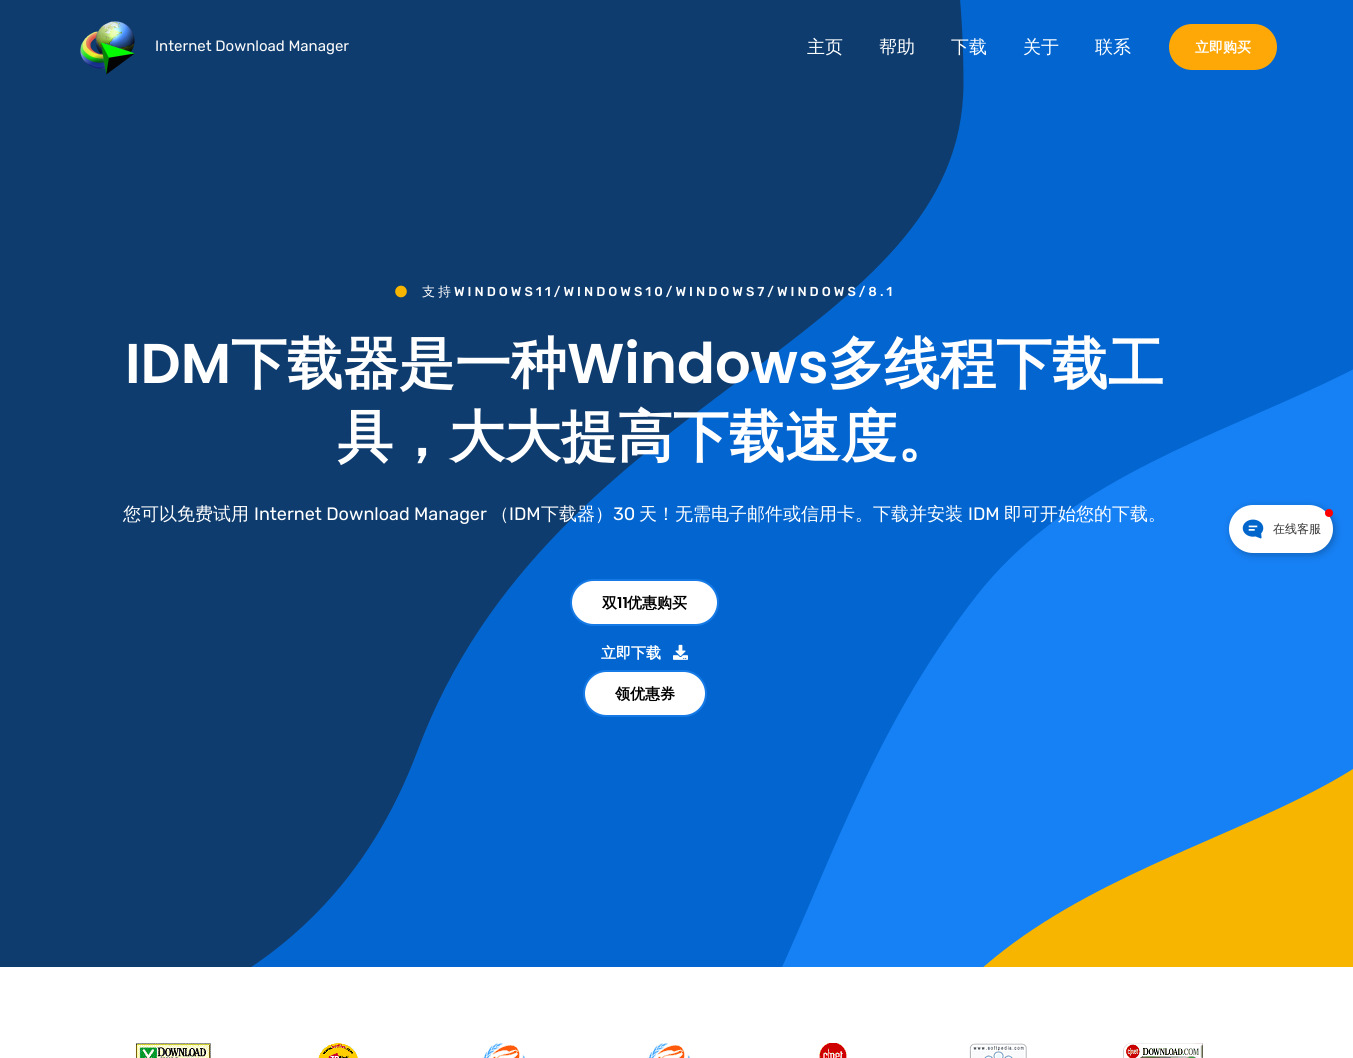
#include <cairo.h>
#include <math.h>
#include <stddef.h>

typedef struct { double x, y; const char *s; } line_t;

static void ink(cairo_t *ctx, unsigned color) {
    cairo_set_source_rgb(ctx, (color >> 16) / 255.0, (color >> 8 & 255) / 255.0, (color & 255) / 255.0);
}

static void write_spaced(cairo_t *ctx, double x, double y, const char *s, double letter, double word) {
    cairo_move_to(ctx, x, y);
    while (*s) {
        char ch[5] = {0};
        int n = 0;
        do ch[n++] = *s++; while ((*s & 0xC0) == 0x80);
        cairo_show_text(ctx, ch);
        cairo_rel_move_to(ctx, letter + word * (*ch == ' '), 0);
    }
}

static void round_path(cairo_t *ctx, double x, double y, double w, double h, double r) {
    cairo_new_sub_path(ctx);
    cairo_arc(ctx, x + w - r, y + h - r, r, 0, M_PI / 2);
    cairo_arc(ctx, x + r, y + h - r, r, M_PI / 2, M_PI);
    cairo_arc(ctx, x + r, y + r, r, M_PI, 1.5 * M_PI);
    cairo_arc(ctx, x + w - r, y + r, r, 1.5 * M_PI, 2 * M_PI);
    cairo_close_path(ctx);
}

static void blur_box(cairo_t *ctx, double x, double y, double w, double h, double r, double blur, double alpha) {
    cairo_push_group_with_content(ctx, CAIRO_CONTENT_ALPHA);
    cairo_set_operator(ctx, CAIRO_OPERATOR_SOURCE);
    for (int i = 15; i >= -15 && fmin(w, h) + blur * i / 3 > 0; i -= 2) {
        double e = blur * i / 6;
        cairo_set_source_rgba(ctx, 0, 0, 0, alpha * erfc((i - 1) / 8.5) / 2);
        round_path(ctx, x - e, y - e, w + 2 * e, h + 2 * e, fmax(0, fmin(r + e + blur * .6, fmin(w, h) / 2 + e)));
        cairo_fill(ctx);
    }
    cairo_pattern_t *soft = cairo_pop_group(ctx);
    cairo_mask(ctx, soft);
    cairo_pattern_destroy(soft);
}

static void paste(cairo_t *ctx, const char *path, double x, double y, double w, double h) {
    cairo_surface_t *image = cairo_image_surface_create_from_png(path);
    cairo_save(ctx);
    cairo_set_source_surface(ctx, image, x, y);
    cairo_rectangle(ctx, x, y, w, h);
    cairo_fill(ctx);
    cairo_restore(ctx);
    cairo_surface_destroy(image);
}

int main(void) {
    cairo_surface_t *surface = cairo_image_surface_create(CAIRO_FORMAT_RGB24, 1353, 1058);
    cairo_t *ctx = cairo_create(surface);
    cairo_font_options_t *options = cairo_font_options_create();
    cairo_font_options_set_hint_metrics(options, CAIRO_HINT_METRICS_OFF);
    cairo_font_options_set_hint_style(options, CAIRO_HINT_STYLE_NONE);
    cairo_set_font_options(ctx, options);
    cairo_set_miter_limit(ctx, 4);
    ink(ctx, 0xFFFFFF);
    cairo_paint(ctx);
    paste(ctx, "media/2.png", 0, 0, 1353, 967);
    paste(ctx, "media/1.png", 80, 21, 55, 54);
    cairo_select_font_face(ctx, "Rubik", CAIRO_FONT_SLANT_NORMAL, CAIRO_FONT_WEIGHT_NORMAL);
    cairo_set_font_size(ctx, 15);
    ink(ctx, 0xF9F9F9);
    cairo_move_to(ctx, 155, 51);
    cairo_show_text(ctx, "Internet Download Manager");
    cairo_select_font_face(ctx, "WenQuanYi Zen Hei Medium", CAIRO_FONT_SLANT_NORMAL, CAIRO_FONT_WEIGHT_NORMAL);
    cairo_set_font_size(ctx, 18);
    ink(ctx, 0xFFFFFF);
    {
        static const line_t items[] = {
            {807, 53, "主页"},
            {879, 53, "帮助"},
            {951, 53, "下载"},
            {1023, 53, "关于"},
            {1095, 53, "联系"},
        };
        for (size_t i = 0; i < sizeof items / sizeof *items; i++) {
            cairo_move_to(ctx, items[i].x, items[i].y);
            cairo_show_text(ctx, items[i].s);
        }
    }
    ink(ctx, 0xFEA807);
    round_path(ctx, 1169, 24, 108, 46, 23);
    cairo_fill(ctx);
    cairo_select_font_face(ctx, "WenQuanYi Zen Hei", CAIRO_FONT_SLANT_NORMAL, CAIRO_FONT_WEIGHT_BOLD);
    cairo_set_font_size(ctx, 14);
    ink(ctx, 0xFFFFFF);
    cairo_move_to(ctx, 1195, 52);
    cairo_show_text(ctx, "立即购买");
    paste(ctx, "media/3.png", 395, 285, 12, 13);
    cairo_select_font_face(ctx, "WenQuanYi Zen Hei Medium", CAIRO_FONT_SLANT_NORMAL, CAIRO_FONT_WEIGHT_NORMAL);
    cairo_set_font_size(ctx, 13);
    write_spaced(ctx, 422, 296, "支持", 3, 0);
    cairo_select_font_face(ctx, "Rubik Medium", CAIRO_FONT_SLANT_NORMAL, CAIRO_FONT_WEIGHT_NORMAL);
    write_spaced(ctx, 454, 296, "WINDOWS11/WINDOWS10/WINDOWS7/WINDOWS/8.1", 3, 0);
    cairo_select_font_face(ctx, "Poppins SemiBold", CAIRO_FONT_SLANT_NORMAL, CAIRO_FONT_WEIGHT_NORMAL);
    cairo_set_font_size(ctx, 56);
    cairo_move_to(ctx, 125, 383);
    cairo_show_text(ctx, "IDM");
    cairo_select_font_face(ctx, "WenQuanYi Zen Hei", CAIRO_FONT_SLANT_NORMAL, CAIRO_FONT_WEIGHT_BOLD);
    cairo_move_to(ctx, 231, 383);
    cairo_show_text(ctx, "下载器是一种");
    cairo_select_font_face(ctx, "Poppins SemiBold", CAIRO_FONT_SLANT_NORMAL, CAIRO_FONT_WEIGHT_NORMAL);
    cairo_move_to(ctx, 567, 383);
    cairo_show_text(ctx, "Windows");
    cairo_select_font_face(ctx, "WenQuanYi Zen Hei", CAIRO_FONT_SLANT_NORMAL, CAIRO_FONT_WEIGHT_BOLD);
    cairo_move_to(ctx, 828, 383);
    cairo_show_text(ctx, "多线程下载工");
    cairo_move_to(ctx, 337, 456);
    cairo_show_text(ctx, "具，大大提高下载速度。");
    cairo_select_font_face(ctx, "WenQuanYi Zen Hei Medium", CAIRO_FONT_SLANT_NORMAL, CAIRO_FONT_WEIGHT_NORMAL);
    cairo_set_font_size(ctx, 18);
    cairo_move_to(ctx, 123, 520);
    cairo_show_text(ctx, "您可以免费试用");
    cairo_select_font_face(ctx, "Rubik", CAIRO_FONT_SLANT_NORMAL, CAIRO_FONT_WEIGHT_NORMAL);
    cairo_move_to(ctx, 254, 520);
    cairo_show_text(ctx, "Internet Download Manager");
    cairo_select_font_face(ctx, "WenQuanYi Zen Hei Medium", CAIRO_FONT_SLANT_NORMAL, CAIRO_FONT_WEIGHT_NORMAL);
    cairo_move_to(ctx, 491, 520);
    cairo_show_text(ctx, "（");
    cairo_select_font_face(ctx, "Rubik", CAIRO_FONT_SLANT_NORMAL, CAIRO_FONT_WEIGHT_NORMAL);
    cairo_move_to(ctx, 509, 520);
    cairo_show_text(ctx, "IDM");
    cairo_select_font_face(ctx, "WenQuanYi Zen Hei Medium", CAIRO_FONT_SLANT_NORMAL, CAIRO_FONT_WEIGHT_NORMAL);
    cairo_move_to(ctx, 541, 520);
    cairo_show_text(ctx, "下载器）");
    cairo_select_font_face(ctx, "Rubik", CAIRO_FONT_SLANT_NORMAL, CAIRO_FONT_WEIGHT_NORMAL);
    cairo_move_to(ctx, 613, 520);
    cairo_show_text(ctx, "30");
    cairo_select_font_face(ctx, "WenQuanYi Zen Hei Medium", CAIRO_FONT_SLANT_NORMAL, CAIRO_FONT_WEIGHT_NORMAL);
    cairo_move_to(ctx, 639, 520);
    cairo_show_text(ctx, "天！无需电子邮件或信用卡。下载并安装");
    cairo_select_font_face(ctx, "Rubik", CAIRO_FONT_SLANT_NORMAL, CAIRO_FONT_WEIGHT_NORMAL);
    cairo_move_to(ctx, 968, 520);
    cairo_show_text(ctx, "IDM");
    cairo_select_font_face(ctx, "WenQuanYi Zen Hei Medium", CAIRO_FONT_SLANT_NORMAL, CAIRO_FONT_WEIGHT_NORMAL);
    cairo_move_to(ctx, 1004, 520);
    cairo_show_text(ctx, "即可开始您的下载。");
    round_path(ctx, 571, 580, 147, 45, 22.5);
    cairo_fill_preserve(ctx);
    ink(ctx, 0x1579E6);
    cairo_stroke(ctx);
    cairo_select_font_face(ctx, "WenQuanYi Zen Hei", CAIRO_FONT_SLANT_NORMAL, CAIRO_FONT_WEIGHT_BOLD);
    cairo_set_font_size(ctx, 15);
    ink(ctx, 0x000000);
    cairo_move_to(ctx, 602, 608);
    cairo_show_text(ctx, "双");
    cairo_select_font_face(ctx, "Poppins SemiBold", CAIRO_FONT_SLANT_NORMAL, CAIRO_FONT_WEIGHT_NORMAL);
    cairo_move_to(ctx, 617, 608);
    cairo_show_text(ctx, "11");
    cairo_select_font_face(ctx, "WenQuanYi Zen Hei", CAIRO_FONT_SLANT_NORMAL, CAIRO_FONT_WEIGHT_BOLD);
    cairo_move_to(ctx, 627, 608);
    cairo_show_text(ctx, "优惠购买");
    ink(ctx, 0xFFFFFF);
    cairo_move_to(ctx, 601, 658);
    cairo_show_text(ctx, "立即下载");
    paste(ctx, "media/4.png", 673, 644, 15, 16);
    round_path(ctx, 584, 671, 122, 45, 22.5);
    cairo_fill_preserve(ctx);
    ink(ctx, 0x1579E6);
    cairo_stroke(ctx);
    ink(ctx, 0x000000);
    cairo_move_to(ctx, 615, 699);
    cairo_show_text(ctx, "领优惠券");
    paste(ctx, "media/5.png", 135, 1043, 76, 15);
    paste(ctx, "media/6.png", 318, 1043, 40, 15);
    paste(ctx, "media/7.png", 482, 1043, 43, 15);
    paste(ctx, "media/7.png", 647, 1043, 43, 15);
    paste(ctx, "media/8.png", 819, 1043, 28, 15);
    paste(ctx, "media/9.png", 969, 1043, 58, 15);
    paste(ctx, "media/10.png", 1123, 1043, 80, 15);
    ink(ctx, 0x000000);
    blur_box(ctx, 1231, 507, 104, 48, 24, 4, 0.25);
    ink(ctx, 0xFFFFFF);
    round_path(ctx, 1229, 505, 104, 48, 24);
    cairo_fill(ctx);
    ink(ctx, 0xFF0000);
    cairo_arc(ctx, 1329, 513, 4, 0, 2 * M_PI);
    cairo_fill(ctx);
    paste(ctx, "media/11.png", 1242, 519, 22, 20);
    cairo_select_font_face(ctx, "WenQuanYi Zen Hei Medium", CAIRO_FONT_SLANT_NORMAL, CAIRO_FONT_WEIGHT_NORMAL);
    cairo_set_font_size(ctx, 12);
    ink(ctx, 0x333333);
    cairo_move_to(ctx, 1273, 533);
    cairo_show_text(ctx, "在线客服");
    cairo_surface_write_to_png(surface, "image.png");
    cairo_font_options_destroy(options);
    cairo_destroy(ctx);
    cairo_surface_destroy(surface);
    return 0;
}
